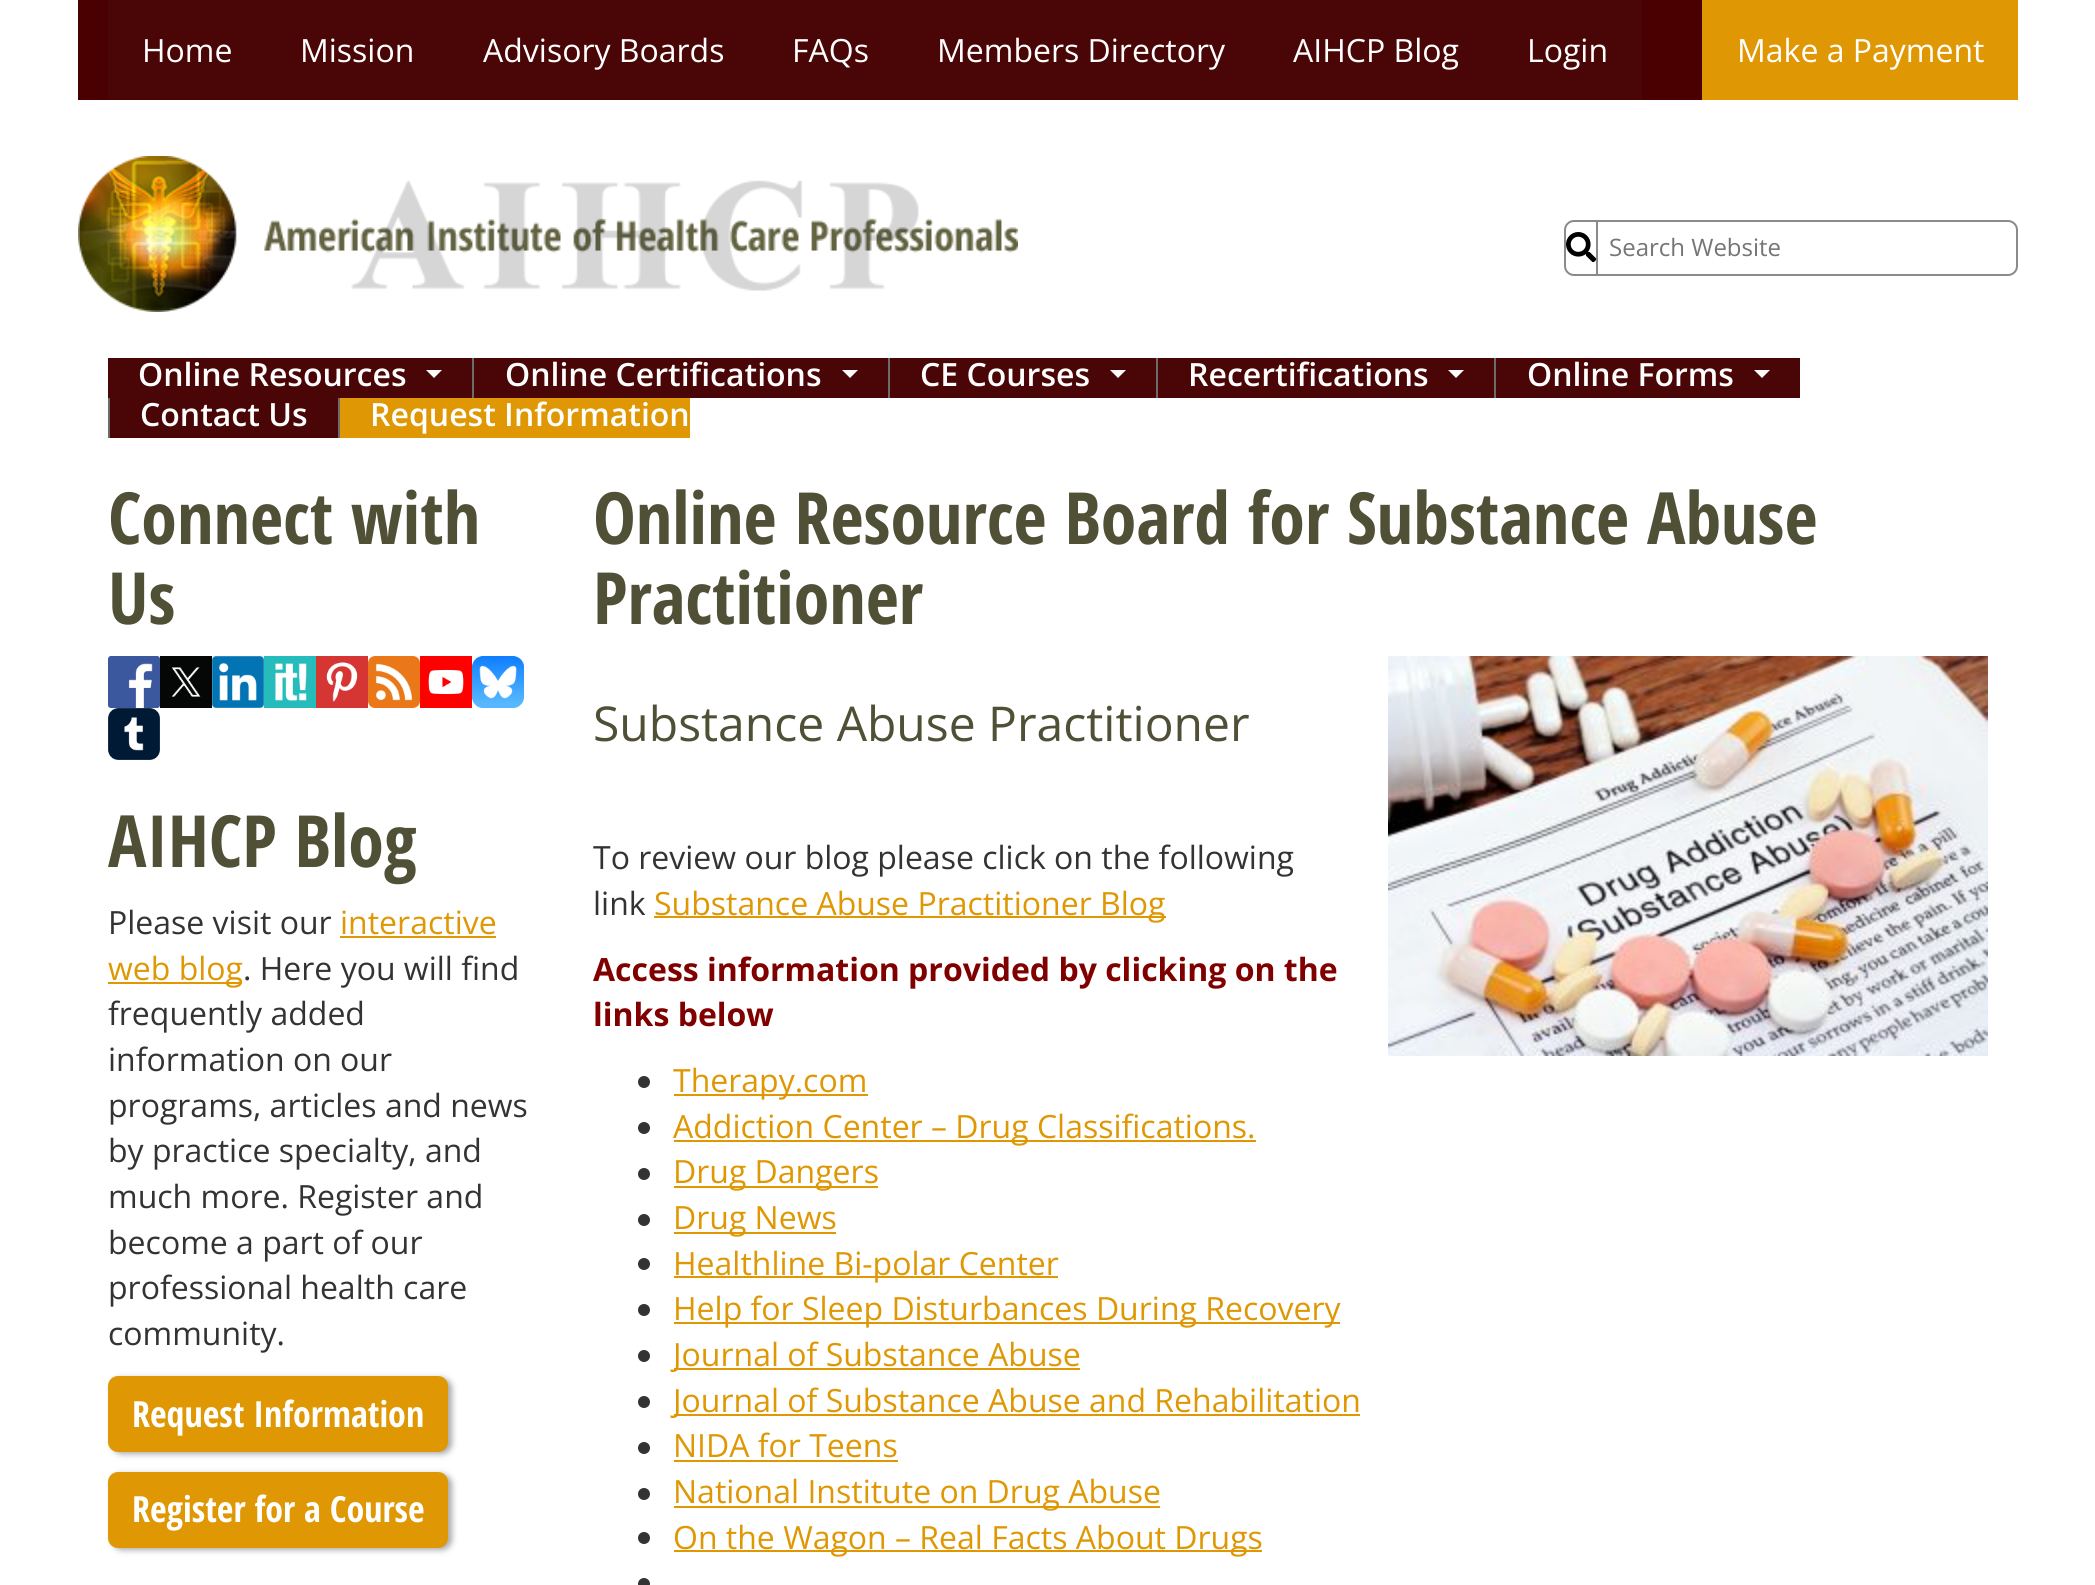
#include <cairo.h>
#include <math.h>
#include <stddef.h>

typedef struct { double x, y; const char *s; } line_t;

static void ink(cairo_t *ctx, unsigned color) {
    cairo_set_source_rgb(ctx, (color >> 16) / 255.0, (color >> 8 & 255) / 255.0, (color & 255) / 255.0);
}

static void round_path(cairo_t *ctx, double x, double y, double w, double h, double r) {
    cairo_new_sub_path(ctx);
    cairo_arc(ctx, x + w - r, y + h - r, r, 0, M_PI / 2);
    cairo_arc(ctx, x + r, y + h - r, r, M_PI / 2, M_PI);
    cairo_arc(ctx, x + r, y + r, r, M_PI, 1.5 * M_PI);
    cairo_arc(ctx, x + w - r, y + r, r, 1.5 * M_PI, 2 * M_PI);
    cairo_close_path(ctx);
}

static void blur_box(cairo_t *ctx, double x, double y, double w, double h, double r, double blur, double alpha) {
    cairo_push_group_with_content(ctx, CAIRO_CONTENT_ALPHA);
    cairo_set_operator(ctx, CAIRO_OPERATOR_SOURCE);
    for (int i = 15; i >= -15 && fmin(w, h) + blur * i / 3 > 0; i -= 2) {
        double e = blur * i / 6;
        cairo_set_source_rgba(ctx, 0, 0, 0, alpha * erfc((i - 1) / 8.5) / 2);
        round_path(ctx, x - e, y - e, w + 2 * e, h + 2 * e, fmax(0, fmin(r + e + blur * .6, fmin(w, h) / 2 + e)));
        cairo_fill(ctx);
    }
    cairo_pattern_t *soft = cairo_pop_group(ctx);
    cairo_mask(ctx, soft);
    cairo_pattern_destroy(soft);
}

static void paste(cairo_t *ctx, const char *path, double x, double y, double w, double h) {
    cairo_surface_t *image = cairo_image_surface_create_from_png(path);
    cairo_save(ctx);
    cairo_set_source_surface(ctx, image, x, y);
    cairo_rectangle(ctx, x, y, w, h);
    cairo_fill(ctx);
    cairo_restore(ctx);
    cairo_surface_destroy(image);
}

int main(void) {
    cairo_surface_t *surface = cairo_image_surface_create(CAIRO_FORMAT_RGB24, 2095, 1585);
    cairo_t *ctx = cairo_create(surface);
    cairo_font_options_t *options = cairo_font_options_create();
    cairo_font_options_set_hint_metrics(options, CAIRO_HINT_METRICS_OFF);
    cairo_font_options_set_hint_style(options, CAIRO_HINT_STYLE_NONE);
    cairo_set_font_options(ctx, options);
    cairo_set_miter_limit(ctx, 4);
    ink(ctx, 0xFFFFFF);
    cairo_paint(ctx);
    ink(ctx, 0x4A0000);
    cairo_rectangle(ctx, 78, 0, 1624, 100);
    cairo_fill(ctx);
    ink(ctx, 0x4A0606);
    cairo_rectangle(ctx, 108, 0, 1534, 100);
    cairo_fill(ctx);
    cairo_select_font_face(ctx, "Open Sans", CAIRO_FONT_SLANT_NORMAL, CAIRO_FONT_WEIGHT_NORMAL);
    cairo_set_font_size(ctx, 32);
    ink(ctx, 0xFFFFFF);
    {
        static const line_t items[] = {
            {142, 62, "Home"},
            {300, 62, "Mission"},
            {483, 62, "Advisory Boards"},
            {792, 62, "FAQs"},
            {937, 62, "Members Directory"},
            {1293, 62, "AIHCP Blog"},
            {1527, 62, "Login"},
        };
        for (size_t i = 0; i < sizeof items / sizeof *items; i++) {
            cairo_move_to(ctx, items[i].x, items[i].y);
            cairo_show_text(ctx, items[i].s);
        }
    }
    ink(ctx, 0xDF9804);
    cairo_rectangle(ctx, 1702, 0, 316, 100);
    cairo_fill(ctx);
    ink(ctx, 0xFFFFFF);
    cairo_move_to(ctx, 1737, 62);
    cairo_show_text(ctx, "Make a Payment");
    paste(ctx, "media/1.png", 78, 156, 940, 156);
    round_path(ctx, 1565, 221, 452, 54, 9);
    ink(ctx, 0x8B8989);
    cairo_stroke(ctx);
    paste(ctx, "media/2.png", 1566, 232, 30, 30);
    cairo_rectangle(ctx, 1596, 222, 2, 52);
    cairo_fill(ctx);
    cairo_set_font_size(ctx, 24);
    ink(ctx, 0x757575);
    cairo_move_to(ctx, 1609, 256);
    cairo_show_text(ctx, "Search Website");
    ink(ctx, 0x4A0606);
    cairo_rectangle(ctx, 108, 358, 364, 40);
    cairo_fill(ctx);
    cairo_select_font_face(ctx, "Open Sans SemiBold", CAIRO_FONT_SLANT_NORMAL, CAIRO_FONT_WEIGHT_NORMAL);
    cairo_set_font_size(ctx, 32);
    ink(ctx, 0xFFFFFF);
    cairo_move_to(ctx, 138, 386);
    cairo_show_text(ctx, "Online Resources");
    cairo_new_path(ctx);
    cairo_move_to(ctx, 426, 370);
    cairo_line_to(ctx, 442, 370);
    cairo_line_to(ctx, 434, 378);
    cairo_close_path(ctx);
    cairo_fill(ctx);
    ink(ctx, 0x4A0606);
    cairo_rectangle(ctx, 474, 358, 414, 40);
    cairo_fill(ctx);
    ink(ctx, 0x6B6B6B);
    cairo_rectangle(ctx, 472, 358, 2, 40);
    cairo_fill(ctx);
    ink(ctx, 0xFFFFFF);
    cairo_move_to(ctx, 505, 386);
    cairo_show_text(ctx, "Online Certifications");
    cairo_new_path(ctx);
    cairo_move_to(ctx, 842, 370);
    cairo_line_to(ctx, 858, 370);
    cairo_line_to(ctx, 850, 378);
    cairo_close_path(ctx);
    cairo_fill(ctx);
    ink(ctx, 0x4A0606);
    cairo_rectangle(ctx, 890, 358, 266, 40);
    cairo_fill(ctx);
    ink(ctx, 0x6B6B6B);
    cairo_rectangle(ctx, 888, 358, 2, 40);
    cairo_fill(ctx);
    ink(ctx, 0xFFFFFF);
    cairo_move_to(ctx, 920, 386);
    cairo_show_text(ctx, "CE Courses");
    cairo_new_path(ctx);
    cairo_move_to(ctx, 1110, 370);
    cairo_line_to(ctx, 1126, 370);
    cairo_line_to(ctx, 1118, 378);
    cairo_close_path(ctx);
    cairo_fill(ctx);
    ink(ctx, 0x4A0606);
    cairo_rectangle(ctx, 1158, 358, 336, 40);
    cairo_fill(ctx);
    ink(ctx, 0x6B6B6B);
    cairo_rectangle(ctx, 1156, 358, 2, 40);
    cairo_fill(ctx);
    ink(ctx, 0xFFFFFF);
    cairo_move_to(ctx, 1188, 386);
    cairo_show_text(ctx, "Recertifications");
    cairo_new_path(ctx);
    cairo_move_to(ctx, 1448, 370);
    cairo_line_to(ctx, 1464, 370);
    cairo_line_to(ctx, 1456, 378);
    cairo_close_path(ctx);
    cairo_fill(ctx);
    ink(ctx, 0x4A0606);
    cairo_rectangle(ctx, 1496, 358, 304, 40);
    cairo_fill(ctx);
    ink(ctx, 0x6B6B6B);
    cairo_rectangle(ctx, 1494, 358, 2, 40);
    cairo_fill(ctx);
    ink(ctx, 0xFFFFFF);
    cairo_move_to(ctx, 1527, 386);
    cairo_show_text(ctx, "Online Forms");
    cairo_new_path(ctx);
    cairo_move_to(ctx, 1754, 370);
    cairo_line_to(ctx, 1770, 370);
    cairo_line_to(ctx, 1762, 378);
    cairo_close_path(ctx);
    cairo_fill(ctx);
    ink(ctx, 0x4A0606);
    cairo_rectangle(ctx, 110, 398, 228, 40);
    cairo_fill(ctx);
    ink(ctx, 0x6B6B6B);
    cairo_rectangle(ctx, 108, 398, 2, 40);
    cairo_fill(ctx);
    ink(ctx, 0xFFFFFF);
    cairo_move_to(ctx, 140, 426);
    cairo_show_text(ctx, "Contact Us");
    ink(ctx, 0xDF9804);
    cairo_rectangle(ctx, 340, 398, 350, 40);
    cairo_fill(ctx);
    ink(ctx, 0x6B6B6B);
    cairo_rectangle(ctx, 338, 398, 2, 40);
    cairo_fill(ctx);
    ink(ctx, 0xFFFFFF);
    cairo_move_to(ctx, 370, 426);
    cairo_show_text(ctx, "Request Information");
    cairo_select_font_face(ctx, "Open Sans Condensed", CAIRO_FONT_SLANT_NORMAL, CAIRO_FONT_WEIGHT_BOLD);
    cairo_set_font_size(ctx, 72);
    ink(ctx, 0x505036);
    cairo_move_to(ctx, 108, 544);
    cairo_show_text(ctx, "Connect with");
    cairo_move_to(ctx, 108, 624);
    cairo_show_text(ctx, "Us");
    paste(ctx, "media/3.png", 108, 656, 52, 52);
    paste(ctx, "media/4.png", 160, 656, 52, 52);
    paste(ctx, "media/5.png", 212, 656, 52, 52);
    paste(ctx, "media/6.png", 264, 656, 52, 52);
    paste(ctx, "media/7.png", 316, 656, 52, 52);
    paste(ctx, "media/8.png", 368, 656, 52, 52);
    paste(ctx, "media/9.png", 420, 656, 52, 52);
    paste(ctx, "media/10.png", 472, 656, 52, 52);
    paste(ctx, "media/11.png", 108, 708, 52, 52);
    cairo_move_to(ctx, 108, 867);
    cairo_show_text(ctx, "AIHCP Blog");
    cairo_select_font_face(ctx, "Open Sans", CAIRO_FONT_SLANT_NORMAL, CAIRO_FONT_WEIGHT_NORMAL);
    cairo_set_font_size(ctx, 32);
    ink(ctx, 0x333333);
    cairo_move_to(ctx, 108, 934);
    cairo_show_text(ctx, "Please visit our");
    ink(ctx, 0xDF9804);
    cairo_move_to(ctx, 340, 934);
    cairo_show_text(ctx, "interactive");
    cairo_rectangle(ctx, 340, 936, 156, 2);
    cairo_fill(ctx);
    cairo_rectangle(ctx, 108, 982, 134, 2);
    cairo_fill(ctx);
    cairo_move_to(ctx, 108, 980);
    cairo_show_text(ctx, "web blog");
    ink(ctx, 0x333333);
    {
        static const line_t items[] = {
            {243, 980, ". Here you will find"},
            {108, 1025, "frequently added"},
            {108, 1071, "information on our"},
            {108, 1117, "programs, articles and news"},
            {108, 1162, "by practice specialty, and"},
            {108, 1208, "much more. Register and"},
            {108, 1254, "become a part of our"},
            {108, 1299, "professional health care"},
            {108, 1345, "community."},
        };
        for (size_t i = 0; i < sizeof items / sizeof *items; i++) {
            cairo_move_to(ctx, items[i].x, items[i].y);
            cairo_show_text(ctx, items[i].s);
        }
    }
    ink(ctx, 0x3B3C3C);
    blur_box(ctx, 112, 1378, 340, 76, 10, 3, 0.44);
    ink(ctx, 0xDF9804);
    round_path(ctx, 108, 1376, 340, 76, 10);
    cairo_fill(ctx);
    cairo_select_font_face(ctx, "Open Sans Condensed", CAIRO_FONT_SLANT_NORMAL, CAIRO_FONT_WEIGHT_BOLD);
    cairo_set_font_size(ctx, 36);
    ink(ctx, 0xFFFFFF);
    cairo_move_to(ctx, 132, 1427);
    cairo_show_text(ctx, "Request Information");
    ink(ctx, 0x3B3C3C);
    blur_box(ctx, 112, 1474, 340, 76, 10, 3, 0.44);
    ink(ctx, 0xDF9804);
    round_path(ctx, 108, 1472, 340, 76, 10);
    cairo_fill(ctx);
    ink(ctx, 0xFFFFFF);
    cairo_move_to(ctx, 132, 1522);
    cairo_show_text(ctx, "Register for a Course");
    cairo_set_font_size(ctx, 72);
    ink(ctx, 0x505036);
    cairo_move_to(ctx, 593, 544);
    cairo_show_text(ctx, "Online Resource Board for Substance Abuse");
    cairo_move_to(ctx, 593, 624);
    cairo_show_text(ctx, "Practitioner");
    cairo_select_font_face(ctx, "Open Sans", CAIRO_FONT_SLANT_NORMAL, CAIRO_FONT_WEIGHT_NORMAL);
    cairo_set_font_size(ctx, 48);
    cairo_move_to(ctx, 593, 741);
    cairo_show_text(ctx, "Substance Abuse Practitioner");
    paste(ctx, "media/12.png", 1388, 656, 600, 400);
    cairo_set_font_size(ctx, 32);
    ink(ctx, 0x333333);
    cairo_move_to(ctx, 593, 869);
    cairo_show_text(ctx, "To review our blog please click on the following");
    cairo_move_to(ctx, 593, 915);
    cairo_show_text(ctx, "link");
    ink(ctx, 0xDF9804);
    cairo_rectangle(ctx, 654, 916, 512, 2);
    cairo_fill(ctx);
    cairo_move_to(ctx, 654, 915);
    cairo_show_text(ctx, "Substance Abuse Practitioner Blog");
    cairo_select_font_face(ctx, "Open Sans", CAIRO_FONT_SLANT_NORMAL, CAIRO_FONT_WEIGHT_BOLD);
    ink(ctx, 0x800000);
    cairo_move_to(ctx, 593, 981);
    cairo_show_text(ctx, "Access information provided by clicking on the");
    cairo_move_to(ctx, 593, 1026);
    cairo_show_text(ctx, "links below");
    ink(ctx, 0x333333);
    cairo_new_path(ctx);
    cairo_arc(ctx, 644, 1082, 6, 0, 2 * M_PI);
    cairo_fill(ctx);
    ink(ctx, 0xDF9804);
    cairo_rectangle(ctx, 674, 1094, 194, 2);
    cairo_fill(ctx);
    cairo_select_font_face(ctx, "Open Sans", CAIRO_FONT_SLANT_NORMAL, CAIRO_FONT_WEIGHT_NORMAL);
    cairo_move_to(ctx, 673, 1092);
    cairo_show_text(ctx, "Therapy.com");
    ink(ctx, 0x333333);
    cairo_new_path(ctx);
    cairo_arc(ctx, 644, 1128, 6, 0, 2 * M_PI);
    cairo_fill(ctx);
    ink(ctx, 0xDF9804);
    cairo_rectangle(ctx, 674, 1140, 582, 2);
    cairo_fill(ctx);
    cairo_move_to(ctx, 673, 1138);
    cairo_show_text(ctx, "Addiction Center – Drug Classifications.");
    ink(ctx, 0x333333);
    cairo_new_path(ctx);
    cairo_arc(ctx, 644, 1174, 6, 0, 2 * M_PI);
    cairo_fill(ctx);
    ink(ctx, 0xDF9804);
    cairo_rectangle(ctx, 674, 1186, 204, 2);
    cairo_fill(ctx);
    cairo_move_to(ctx, 673, 1183);
    cairo_show_text(ctx, "Drug Dangers");
    ink(ctx, 0x333333);
    cairo_new_path(ctx);
    cairo_arc(ctx, 644, 1220, 6, 0, 2 * M_PI);
    cairo_fill(ctx);
    ink(ctx, 0xDF9804);
    cairo_rectangle(ctx, 674, 1232, 162, 2);
    cairo_fill(ctx);
    cairo_move_to(ctx, 673, 1229);
    cairo_show_text(ctx, "Drug News");
    ink(ctx, 0x333333);
    cairo_new_path(ctx);
    cairo_arc(ctx, 644, 1264, 6, 0, 2 * M_PI);
    cairo_fill(ctx);
    ink(ctx, 0xDF9804);
    cairo_rectangle(ctx, 674, 1276, 384, 2);
    cairo_fill(ctx);
    cairo_move_to(ctx, 673, 1275);
    cairo_show_text(ctx, "Healthline Bi-polar Center");
    ink(ctx, 0x333333);
    cairo_new_path(ctx);
    cairo_arc(ctx, 644, 1310, 6, 0, 2 * M_PI);
    cairo_fill(ctx);
    ink(ctx, 0xDF9804);
    cairo_rectangle(ctx, 674, 1322, 666, 2);
    cairo_fill(ctx);
    cairo_move_to(ctx, 673, 1320);
    cairo_show_text(ctx, "Help for Sleep Disturbances During Recovery");
    ink(ctx, 0x333333);
    cairo_new_path(ctx);
    cairo_arc(ctx, 644, 1356, 6, 0, 2 * M_PI);
    cairo_fill(ctx);
    ink(ctx, 0xDF9804);
    cairo_rectangle(ctx, 674, 1368, 406, 2);
    cairo_fill(ctx);
    cairo_move_to(ctx, 673, 1366);
    cairo_show_text(ctx, "Journal of Substance Abuse");
    ink(ctx, 0x333333);
    cairo_new_path(ctx);
    cairo_arc(ctx, 644, 1402, 6, 0, 2 * M_PI);
    cairo_fill(ctx);
    ink(ctx, 0xDF9804);
    cairo_rectangle(ctx, 674, 1414, 686, 2);
    cairo_fill(ctx);
    cairo_move_to(ctx, 673, 1412);
    cairo_show_text(ctx, "Journal of Substance Abuse and Rehabilitation");
    ink(ctx, 0x333333);
    cairo_new_path(ctx);
    cairo_arc(ctx, 644, 1448, 6, 0, 2 * M_PI);
    cairo_fill(ctx);
    ink(ctx, 0xDF9804);
    cairo_move_to(ctx, 673, 1457);
    cairo_show_text(ctx, "NIDA for Teens");
    cairo_rectangle(ctx, 674, 1460, 224, 2);
    cairo_fill(ctx);
    ink(ctx, 0x333333);
    cairo_arc(ctx, 644, 1494, 6, 0, 2 * M_PI);
    cairo_fill(ctx);
    ink(ctx, 0xDF9804);
    cairo_rectangle(ctx, 674, 1506, 486, 2);
    cairo_fill(ctx);
    cairo_move_to(ctx, 673, 1503);
    cairo_show_text(ctx, "National Institute on Drug Abuse");
    ink(ctx, 0x333333);
    cairo_new_path(ctx);
    cairo_arc(ctx, 644, 1538, 6, 0, 2 * M_PI);
    cairo_fill(ctx);
    ink(ctx, 0xDF9804);
    cairo_rectangle(ctx, 674, 1550, 588, 2);
    cairo_fill(ctx);
    cairo_move_to(ctx, 673, 1549);
    cairo_show_text(ctx, "On the Wagon – Real Facts About Drugs");
    ink(ctx, 0x333333);
    cairo_new_path(ctx);
    cairo_arc(ctx, 644, 1584, 6, 0, 2 * M_PI);
    cairo_fill(ctx);
    cairo_surface_write_to_png(surface, "image.png");
    cairo_font_options_destroy(options);
    cairo_destroy(ctx);
    cairo_surface_destroy(surface);
    return 0;
}
